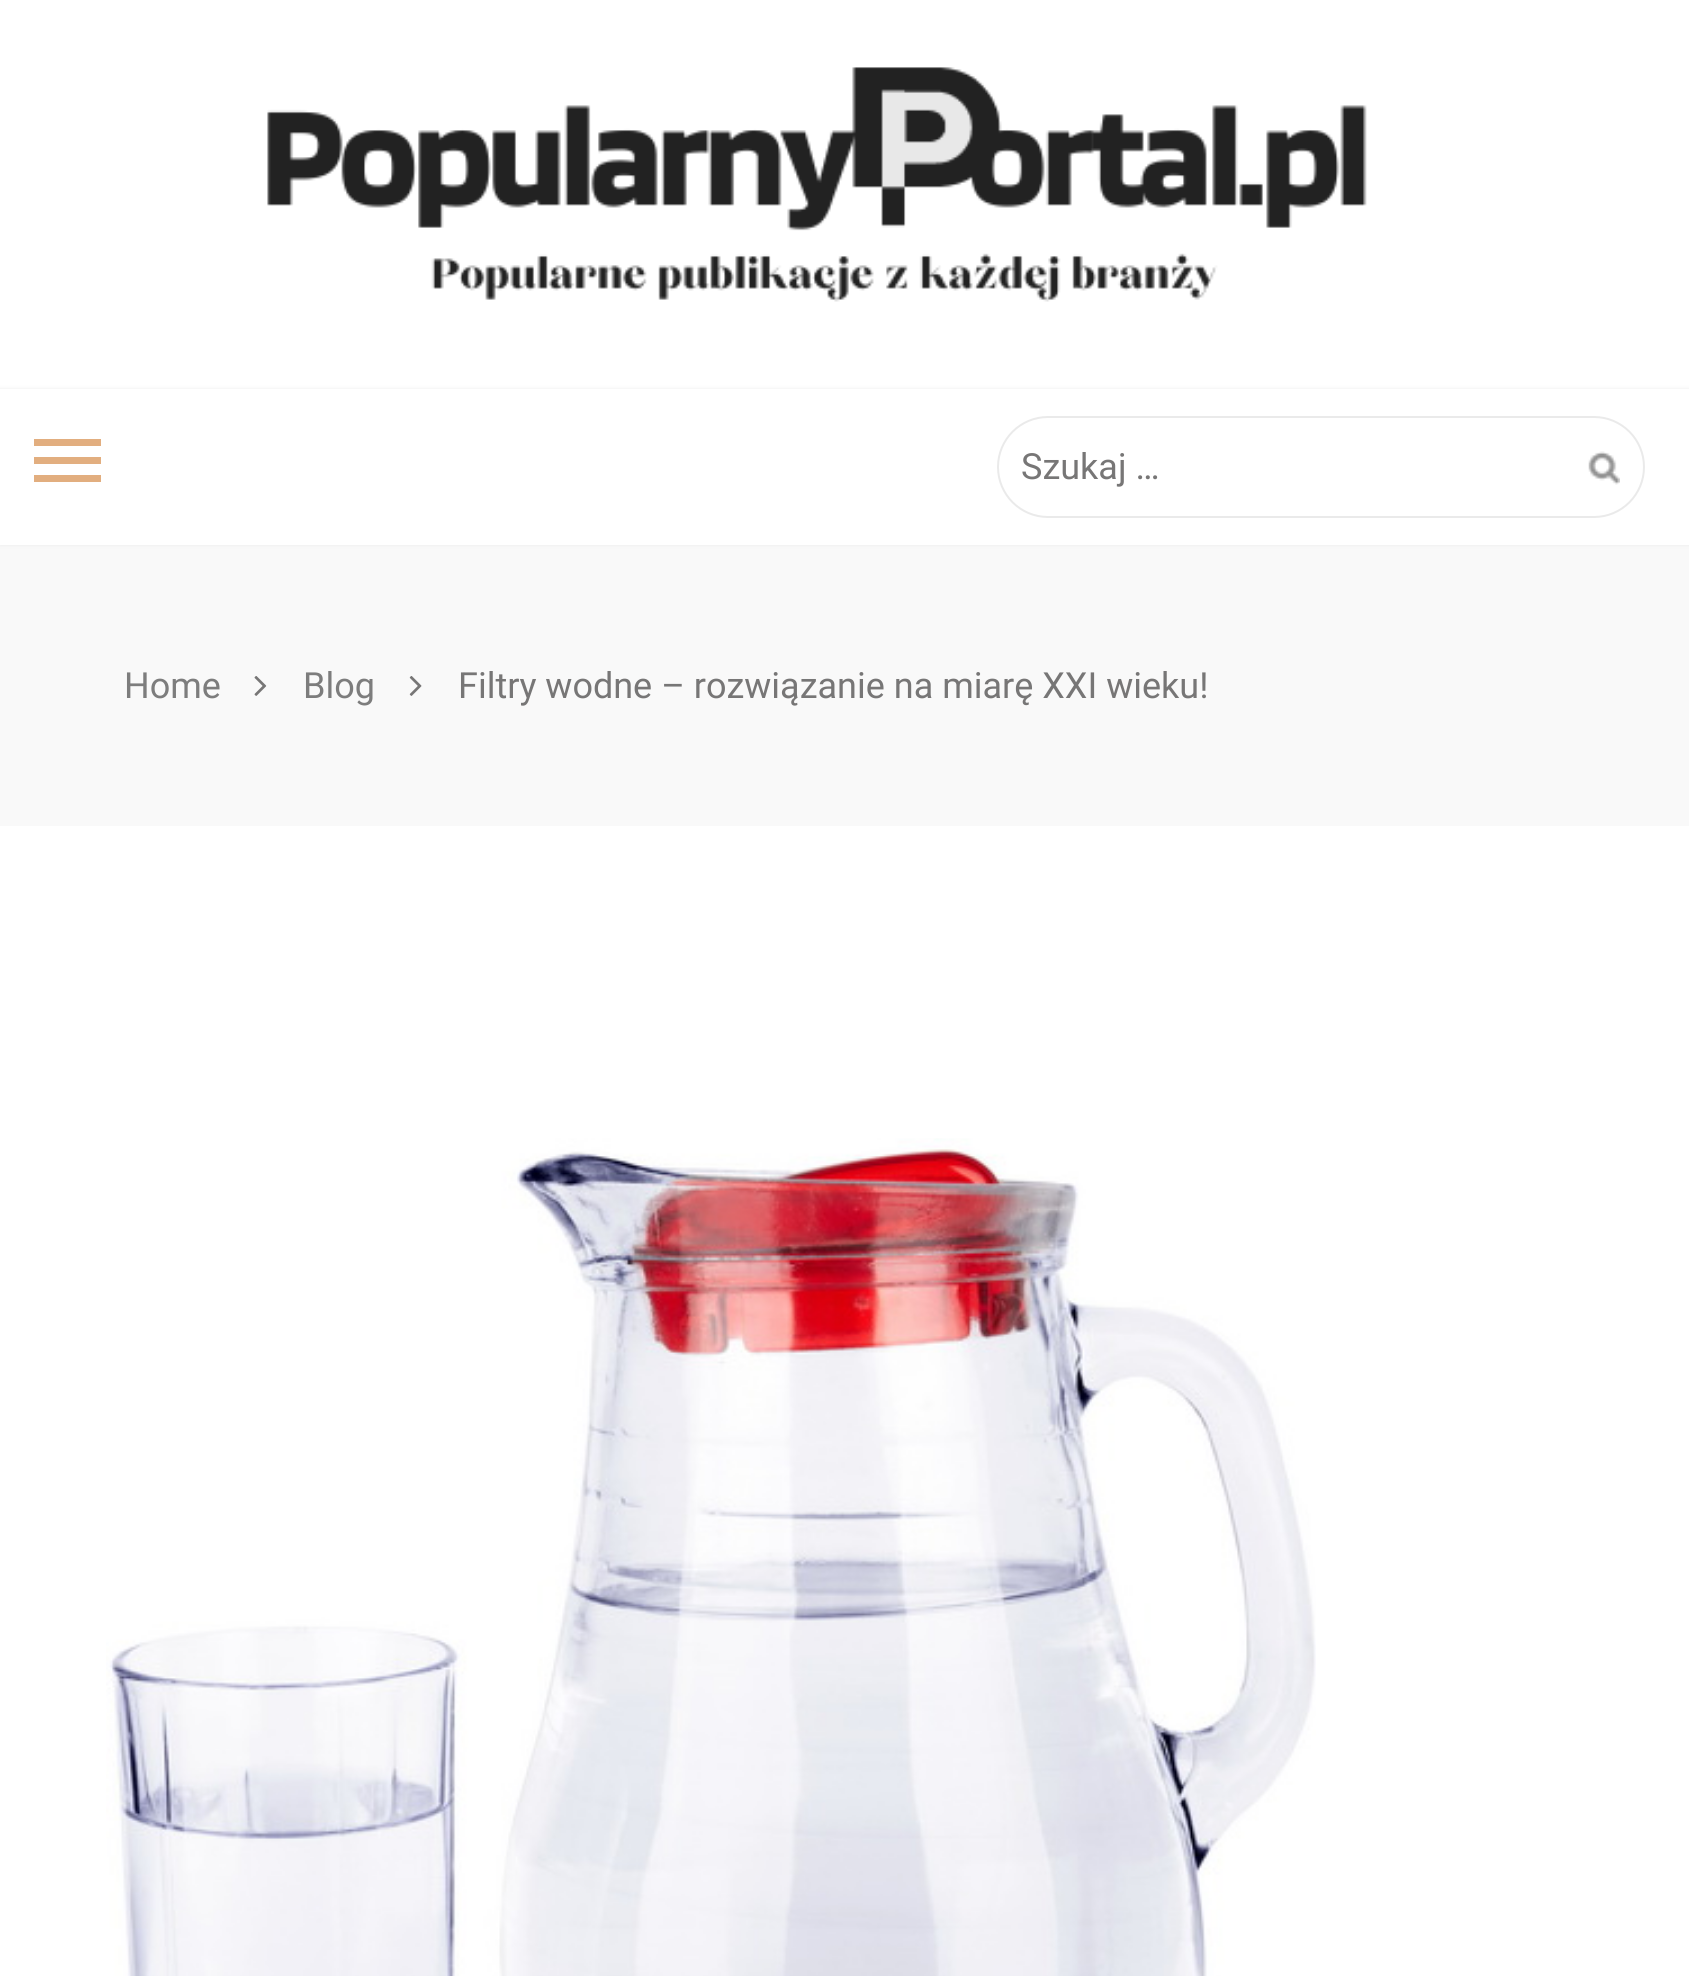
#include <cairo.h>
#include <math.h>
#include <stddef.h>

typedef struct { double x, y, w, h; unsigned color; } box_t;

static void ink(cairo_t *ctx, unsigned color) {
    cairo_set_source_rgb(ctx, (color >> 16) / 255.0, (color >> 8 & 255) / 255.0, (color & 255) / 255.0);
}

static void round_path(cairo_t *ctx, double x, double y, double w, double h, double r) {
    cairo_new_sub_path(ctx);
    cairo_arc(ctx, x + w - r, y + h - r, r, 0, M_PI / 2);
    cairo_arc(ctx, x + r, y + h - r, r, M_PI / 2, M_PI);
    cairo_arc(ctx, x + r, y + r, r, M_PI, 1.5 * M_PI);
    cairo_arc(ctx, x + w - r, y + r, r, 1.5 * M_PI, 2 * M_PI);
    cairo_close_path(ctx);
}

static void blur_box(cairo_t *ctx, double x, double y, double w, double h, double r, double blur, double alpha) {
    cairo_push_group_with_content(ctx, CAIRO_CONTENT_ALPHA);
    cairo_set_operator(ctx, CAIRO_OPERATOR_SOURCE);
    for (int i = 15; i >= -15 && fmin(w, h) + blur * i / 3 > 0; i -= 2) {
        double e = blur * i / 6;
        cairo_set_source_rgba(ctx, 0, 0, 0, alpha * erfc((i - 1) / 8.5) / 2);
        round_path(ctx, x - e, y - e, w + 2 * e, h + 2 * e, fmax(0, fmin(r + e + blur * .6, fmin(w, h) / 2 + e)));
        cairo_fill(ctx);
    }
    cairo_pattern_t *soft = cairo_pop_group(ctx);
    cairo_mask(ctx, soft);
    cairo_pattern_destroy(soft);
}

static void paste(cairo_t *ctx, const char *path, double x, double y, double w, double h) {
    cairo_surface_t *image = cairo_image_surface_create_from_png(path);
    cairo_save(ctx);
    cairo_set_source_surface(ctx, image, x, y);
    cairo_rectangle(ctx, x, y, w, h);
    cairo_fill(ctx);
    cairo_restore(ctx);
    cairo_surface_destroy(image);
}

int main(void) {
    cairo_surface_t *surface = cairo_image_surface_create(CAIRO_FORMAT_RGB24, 1689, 1976);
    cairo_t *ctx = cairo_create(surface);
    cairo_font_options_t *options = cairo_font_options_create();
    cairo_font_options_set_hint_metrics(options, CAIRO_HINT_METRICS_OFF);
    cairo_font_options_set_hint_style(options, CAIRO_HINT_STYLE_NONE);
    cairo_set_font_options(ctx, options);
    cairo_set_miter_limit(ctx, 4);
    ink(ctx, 0xFFFFFF);
    cairo_paint(ctx);
    paste(ctx, "media/1.png", 267, 67, 1100, 235);
    ink(ctx, 0xF9F9F9);
    cairo_rectangle(ctx, 0, 545, 1689, 281);
    cairo_fill(ctx);
    ink(ctx, 0xEBEBEB);
    blur_box(ctx, 0, 389, 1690, 156, 0, 2, 1);
    {
        static const box_t items[] = {
            {0, 389, 1689, 156, 0xFFFFFF},
            {34, 439, 67, 7, 0xE2AE7F},
            {34, 457, 67, 7, 0xE2AE7F},
            {34, 475, 67, 7, 0xE2AE7F},
        };
        for (size_t i = 0; i < sizeof items / sizeof *items; i++) {
            ink(ctx, items[i].color);
            cairo_rectangle(ctx, items[i].x, items[i].y, items[i].w, items[i].h);
            cairo_fill(ctx);
        }
    }
    round_path(ctx, 998, 417, 646, 100, 50);
    ink(ctx, 0xEAEAEA);
    cairo_stroke(ctx);
    cairo_select_font_face(ctx, "Roboto", CAIRO_FONT_SLANT_NORMAL, CAIRO_FONT_WEIGHT_NORMAL);
    cairo_set_font_size(ctx, 36);
    ink(ctx, 0x777676);
    cairo_move_to(ctx, 1021, 479);
    cairo_show_text(ctx, "Szukaj …");
    paste(ctx, "media/2.png", 1588, 451, 32, 34);
    ink(ctx, 0x7D7D7D);
    cairo_move_to(ctx, 124, 698);
    cairo_show_text(ctx, "Home");
    paste(ctx, "media/3.png", 254, 676, 13, 20);
    cairo_move_to(ctx, 303, 698);
    cairo_show_text(ctx, "Blog");
    paste(ctx, "media/4.png", 409, 676, 13, 20);
    ink(ctx, 0x777676);
    cairo_move_to(ctx, 458, 698);
    cairo_show_text(ctx, "Filtry wodne – rozwiązanie na miarę XXI wieku!");
    paste(ctx, "media/5.png", 106, 1138, 1210, 838);
    cairo_surface_write_to_png(surface, "image.png");
    cairo_font_options_destroy(options);
    cairo_destroy(ctx);
    cairo_surface_destroy(surface);
    return 0;
}
